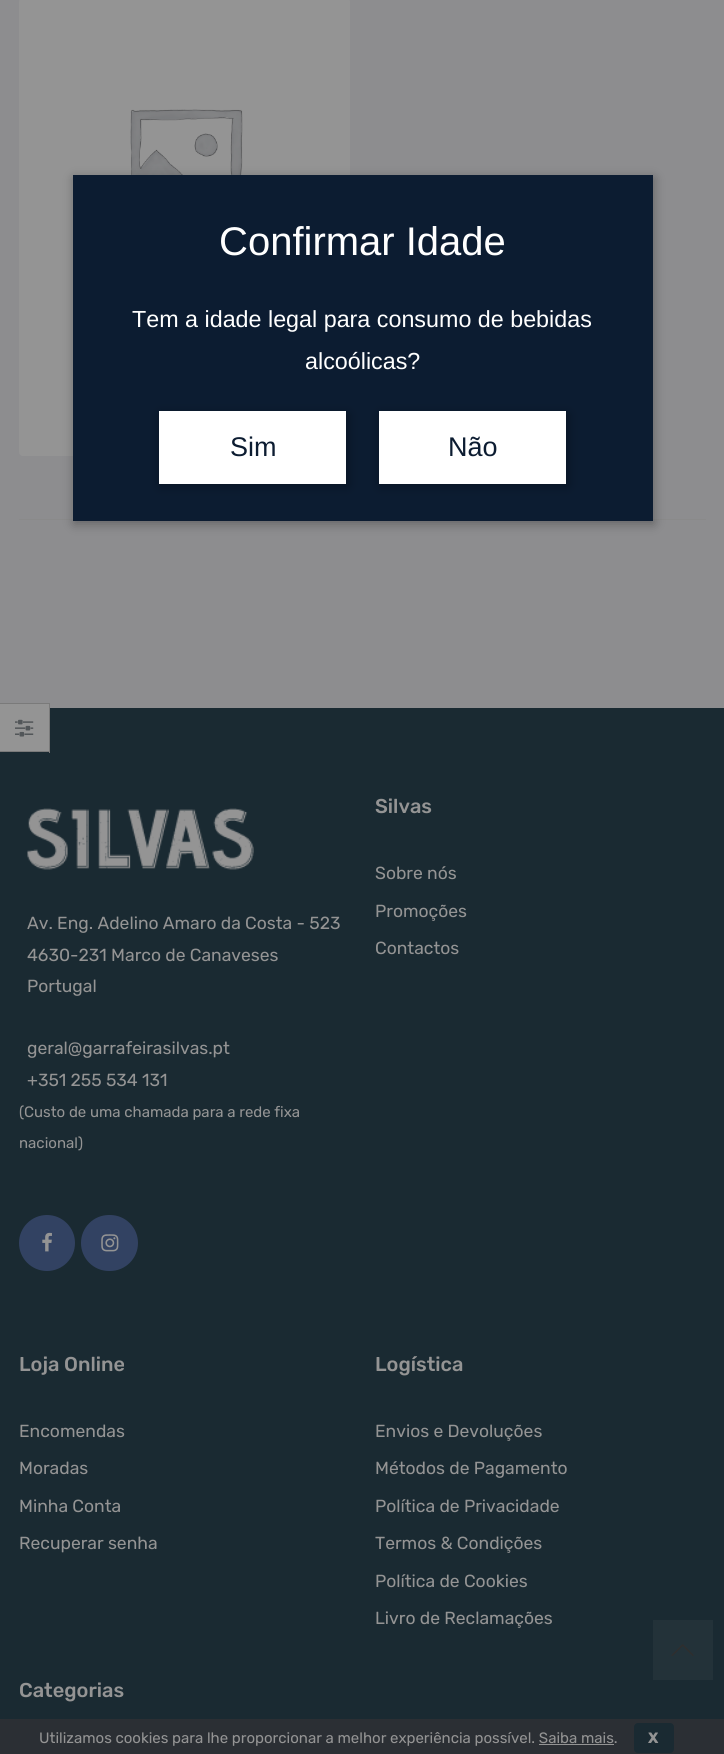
#include <cairo.h>
#include <math.h>
#include <stddef.h>

typedef struct { double x, y; const char *s; } line_t;
typedef struct { double x, y, w, h; unsigned color; } box_t;

static void ink(cairo_t *ctx, unsigned color) {
    cairo_set_source_rgb(ctx, (color >> 16) / 255.0, (color >> 8 & 255) / 255.0, (color & 255) / 255.0);
}

static void round_path(cairo_t *ctx, double x, double y, double w, double h, double r) {
    cairo_new_sub_path(ctx);
    cairo_arc(ctx, x + w - r, y + h - r, r, 0, M_PI / 2);
    cairo_arc(ctx, x + r, y + h - r, r, M_PI / 2, M_PI);
    cairo_arc(ctx, x + r, y + r, r, M_PI, 1.5 * M_PI);
    cairo_arc(ctx, x + w - r, y + r, r, 1.5 * M_PI, 2 * M_PI);
    cairo_close_path(ctx);
}

static void blur_box(cairo_t *ctx, double x, double y, double w, double h, double r, double blur, double alpha) {
    cairo_push_group_with_content(ctx, CAIRO_CONTENT_ALPHA);
    cairo_set_operator(ctx, CAIRO_OPERATOR_SOURCE);
    for (int i = 15; i >= -15 && fmin(w, h) + blur * i / 3 > 0; i -= 2) {
        double e = blur * i / 6;
        cairo_set_source_rgba(ctx, 0, 0, 0, alpha * erfc((i - 1) / 8.5) / 2);
        round_path(ctx, x - e, y - e, w + 2 * e, h + 2 * e, fmax(0, fmin(r + e + blur * .6, fmin(w, h) / 2 + e)));
        cairo_fill(ctx);
    }
    cairo_pattern_t *soft = cairo_pop_group(ctx);
    cairo_mask(ctx, soft);
    cairo_pattern_destroy(soft);
}

static void paste(cairo_t *ctx, const char *path, double x, double y, double w, double h) {
    cairo_surface_t *image = cairo_image_surface_create_from_png(path);
    cairo_save(ctx);
    cairo_set_source_surface(ctx, image, x, y);
    cairo_rectangle(ctx, x, y, w, h);
    cairo_fill(ctx);
    cairo_restore(ctx);
    cairo_surface_destroy(image);
}

int main(void) {
    cairo_surface_t *surface = cairo_image_surface_create(CAIRO_FORMAT_RGB24, 724, 1754);
    cairo_t *ctx = cairo_create(surface);
    cairo_font_options_t *options = cairo_font_options_create();
    cairo_font_options_set_hint_metrics(options, CAIRO_HINT_METRICS_OFF);
    cairo_font_options_set_hint_style(options, CAIRO_HINT_STYLE_NONE);
    cairo_set_font_options(ctx, options);
    cairo_set_miter_limit(ctx, 4);
    ink(ctx, 0x8D8D8F);
    cairo_paint(ctx);
    ink(ctx, 0x949494);
    round_path(ctx, 19, -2, 331, 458, 4);
    cairo_fill(ctx);
    paste(ctx, "media/1.png", 130, 109, 113, 66);
    {
        static const box_t items[] = {
            {19, 519, 687, 1, 0x8A8A8A},
            {0, 708, 724, 1011, 0x1A2A32},
            {0, 704, 49, 47, 0x949494},
            {0, 703, 50, 1, 0x7A7A7A},
            {49, 703, 1, 50, 0x7A7A7A},
            {0, 751, 50, 1, 0x7A7A7A},
        };
        for (size_t i = 0; i < sizeof items / sizeof *items; i++) {
            ink(ctx, items[i].color);
            cairo_rectangle(ctx, items[i].x, items[i].y, items[i].w, items[i].h);
            cairo_fill(ctx);
        }
    }
    paste(ctx, "media/2.png", 15, 719, 19, 18);
    ink(ctx, 0x000000);
    blur_box(ctx, 74, 178, 580, 346, 0, 5.5, 0.3);
    ink(ctx, 0x0C1C31);
    cairo_rectangle(ctx, 73, 175, 580, 346);
    cairo_fill(ctx);
    cairo_select_font_face(ctx, "Liberation Sans", CAIRO_FONT_SLANT_NORMAL, CAIRO_FONT_WEIGHT_NORMAL);
    cairo_set_font_size(ctx, 40);
    ink(ctx, 0xFFFFFF);
    cairo_move_to(ctx, 219, 255);
    cairo_show_text(ctx, "Confirmar Idade");
    cairo_set_font_size(ctx, 23.3);
    cairo_move_to(ctx, 132, 327);
    cairo_show_text(ctx, "Tem a idade legal para consumo de bebidas");
    cairo_move_to(ctx, 305, 369);
    cairo_show_text(ctx, "alcoólicas?");
    ink(ctx, 0x000000);
    blur_box(ctx, 160, 414, 188, 72, 0, 5.5, 0.3);
    ink(ctx, 0xFFFFFF);
    cairo_rectangle(ctx, 159, 411, 187, 73);
    cairo_fill(ctx);
    cairo_set_font_size(ctx, 27);
    ink(ctx, 0x0C1C31);
    cairo_move_to(ctx, 230, 456);
    cairo_show_text(ctx, "Sim");
    ink(ctx, 0x000000);
    blur_box(ctx, 380, 414, 188, 72, 0, 5.5, 0.3);
    ink(ctx, 0xFFFFFF);
    cairo_rectangle(ctx, 379, 411, 187, 73);
    cairo_fill(ctx);
    ink(ctx, 0x0C1C31);
    cairo_move_to(ctx, 448, 456);
    cairo_show_text(ctx, "Não");
    cairo_select_font_face(ctx, "Rubik Medium", CAIRO_FONT_SLANT_NORMAL, CAIRO_FONT_WEIGHT_NORMAL);
    cairo_set_font_size(ctx, 20);
    ink(ctx, 0x949494);
    cairo_move_to(ctx, 375, 813);
    cairo_show_text(ctx, "Silvas");
    cairo_select_font_face(ctx, "Rubik", CAIRO_FONT_SLANT_NORMAL, CAIRO_FONT_WEIGHT_NORMAL);
    cairo_set_font_size(ctx, 17.5);
    {
        static const line_t items[] = {
            {375, 879, "Sobre nós"},
            {375, 917, "Promoções"},
            {375, 954, "Contactos"},
        };
        for (size_t i = 0; i < sizeof items / sizeof *items; i++) {
            cairo_move_to(ctx, items[i].x, items[i].y);
            cairo_show_text(ctx, items[i].s);
        }
    }
    paste(ctx, "media/3.png", 27, 808, 227, 62);
    {
        static const line_t items[] = {
            {27, 929, "Av. Eng. Adelino Amaro da Costa - 523"},
            {27, 961, "4630-231 Marco de Canaveses"},
            {27, 992, "Portugal"},
            {27, 1054, "geral@garrafeirasilvas.pt"},
            {27, 1086, "+351 255 534 131"},
        };
        for (size_t i = 0; i < sizeof items / sizeof *items; i++) {
            cairo_move_to(ctx, items[i].x, items[i].y);
            cairo_show_text(ctx, items[i].s);
        }
    }
    cairo_set_font_size(ctx, 15);
    cairo_move_to(ctx, 19, 1117);
    cairo_show_text(ctx, "(Custo de uma chamada para a rede fixa");
    cairo_move_to(ctx, 19, 1148);
    cairo_show_text(ctx, "nacional)");
    ink(ctx, 0x324262);
    cairo_new_path(ctx);
    cairo_arc(ctx, 47, 1243, 28, 0, 2 * M_PI);
    cairo_fill(ctx);
    paste(ctx, "media/4.png", 42, 1232, 10, 20);
    round_path(ctx, 81, 1215, 57, 56, 28);
    cairo_fill(ctx);
    paste(ctx, "media/5.png", 101, 1234, 18, 18);
    cairo_select_font_face(ctx, "Rubik Medium", CAIRO_FONT_SLANT_NORMAL, CAIRO_FONT_WEIGHT_NORMAL);
    cairo_set_font_size(ctx, 20);
    ink(ctx, 0x949494);
    cairo_move_to(ctx, 19, 1371);
    cairo_show_text(ctx, "Loja Online");
    cairo_select_font_face(ctx, "Rubik", CAIRO_FONT_SLANT_NORMAL, CAIRO_FONT_WEIGHT_NORMAL);
    cairo_set_font_size(ctx, 17.5);
    {
        static const line_t items[] = {
            {19, 1437, "Encomendas"},
            {19, 1474, "Moradas"},
            {19, 1512, "Minha Conta"},
            {19, 1549, "Recuperar senha"},
        };
        for (size_t i = 0; i < sizeof items / sizeof *items; i++) {
            cairo_move_to(ctx, items[i].x, items[i].y);
            cairo_show_text(ctx, items[i].s);
        }
    }
    cairo_select_font_face(ctx, "Rubik Medium", CAIRO_FONT_SLANT_NORMAL, CAIRO_FONT_WEIGHT_NORMAL);
    cairo_set_font_size(ctx, 20);
    cairo_move_to(ctx, 375, 1371);
    cairo_show_text(ctx, "Logística");
    cairo_select_font_face(ctx, "Rubik", CAIRO_FONT_SLANT_NORMAL, CAIRO_FONT_WEIGHT_NORMAL);
    cairo_set_font_size(ctx, 17.5);
    {
        static const line_t items[] = {
            {375, 1437, "Envios e Devoluções"},
            {375, 1474, "Métodos de Pagamento"},
            {375, 1512, "Política de Privacidade"},
            {375, 1549, "Termos & Condições"},
            {375, 1587, "Política de Cookies"},
            {375, 1624, "Livro de Reclamações"},
        };
        for (size_t i = 0; i < sizeof items / sizeof *items; i++) {
            cairo_move_to(ctx, items[i].x, items[i].y);
            cairo_show_text(ctx, items[i].s);
        }
    }
    cairo_select_font_face(ctx, "Rubik Medium", CAIRO_FONT_SLANT_NORMAL, CAIRO_FONT_WEIGHT_NORMAL);
    cairo_set_font_size(ctx, 20);
    cairo_move_to(ctx, 19, 1697);
    cairo_show_text(ctx, "Categorias");
    ink(ctx, 0x233239);
    cairo_rectangle(ctx, 653, 1620, 60, 60);
    cairo_fill(ctx);
    paste(ctx, "media/6.png", 671, 1644, 23, 12);
    ink(ctx, 0x2B2F34);
    cairo_rectangle(ctx, 0, 1719, 724, 35);
    cairo_fill(ctx);
    cairo_select_font_face(ctx, "Rubik", CAIRO_FONT_SLANT_NORMAL, CAIRO_FONT_WEIGHT_NORMAL);
    cairo_set_font_size(ctx, 15);
    ink(ctx, 0x949494);
    cairo_move_to(ctx, 39, 1743);
    cairo_show_text(ctx, "Utilizamos cookies para lhe proporcionar a melhor experiência possível. Saiba mais.");
    ink(ctx, 0x1A2A32);
    round_path(ctx, 634, 1723, 40, 30, 4);
    cairo_fill(ctx);
    cairo_select_font_face(ctx, "Rubik", CAIRO_FONT_SLANT_NORMAL, CAIRO_FONT_WEIGHT_BOLD);
    ink(ctx, 0x949494);
    cairo_move_to(ctx, 648, 1743);
    cairo_show_text(ctx, "X");
    cairo_rectangle(ctx, 539, 1744, 75, 1);
    cairo_fill(ctx);
    cairo_surface_write_to_png(surface, "image.png");
    cairo_font_options_destroy(options);
    cairo_destroy(ctx);
    cairo_surface_destroy(surface);
    return 0;
}
